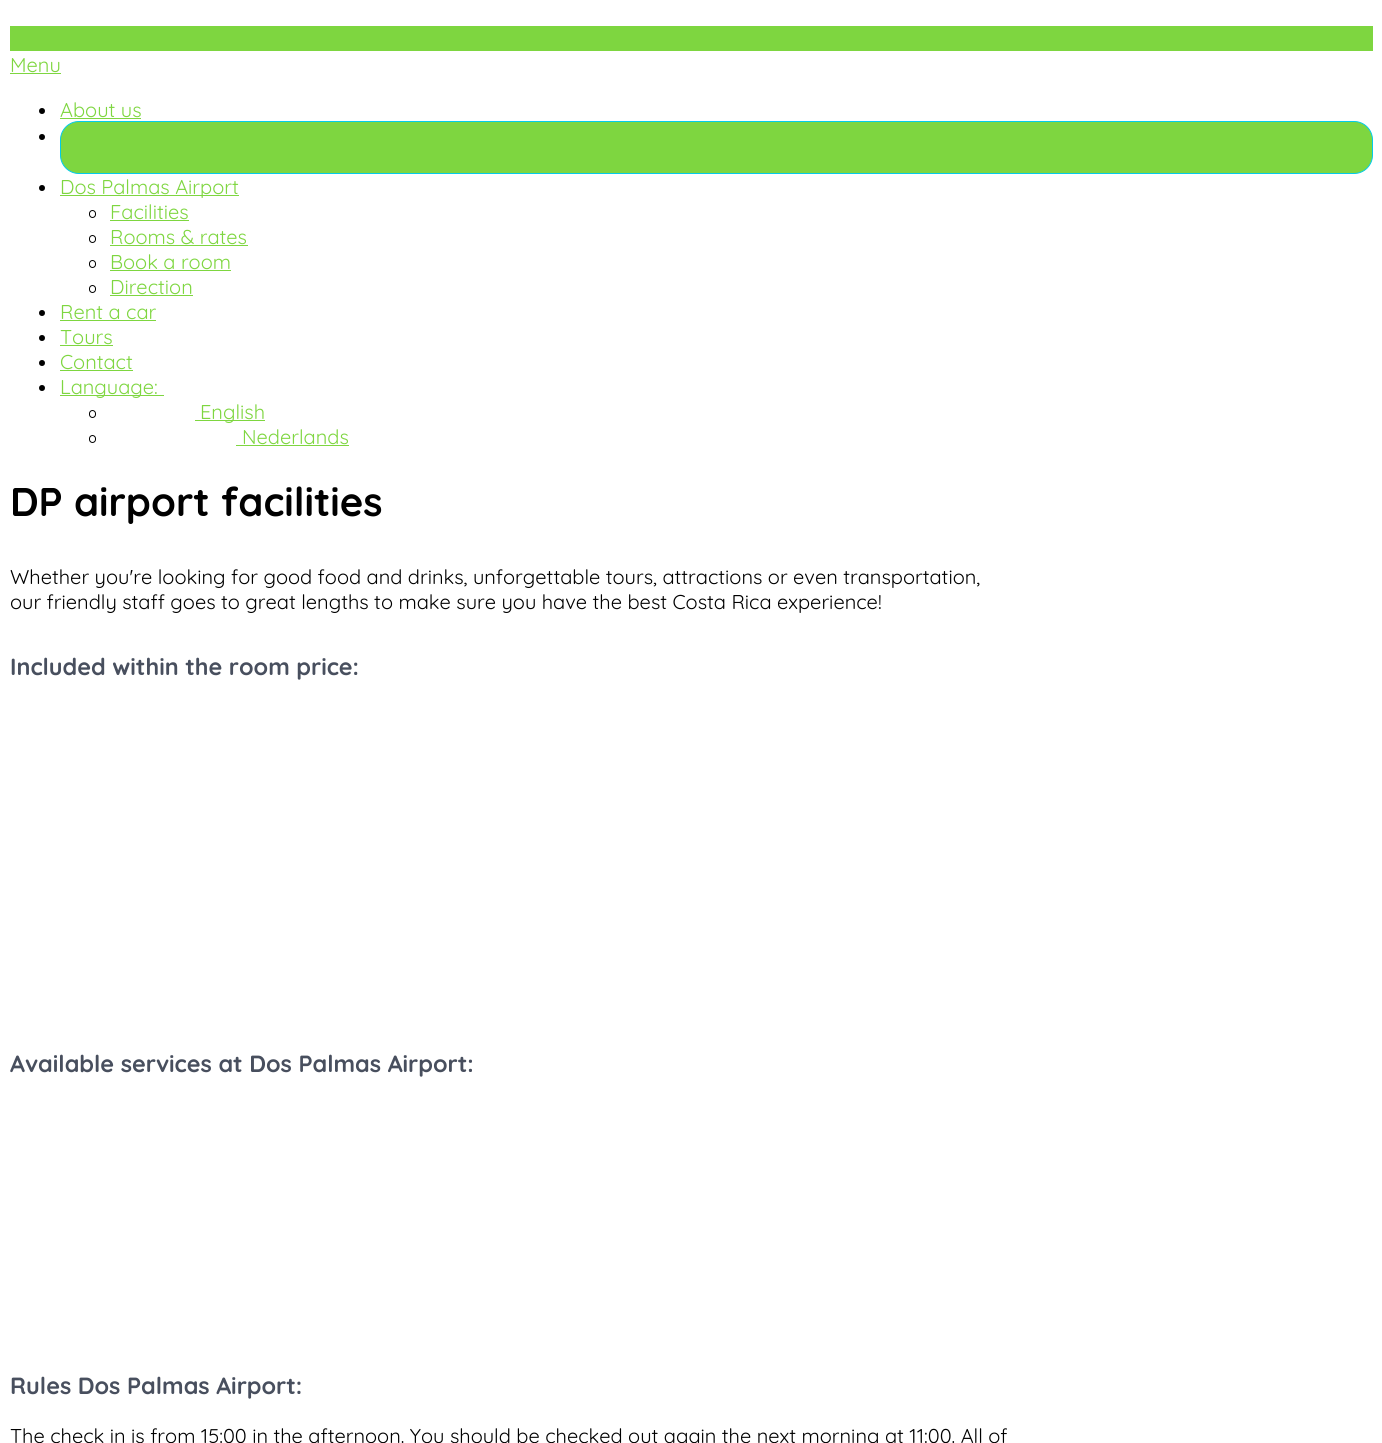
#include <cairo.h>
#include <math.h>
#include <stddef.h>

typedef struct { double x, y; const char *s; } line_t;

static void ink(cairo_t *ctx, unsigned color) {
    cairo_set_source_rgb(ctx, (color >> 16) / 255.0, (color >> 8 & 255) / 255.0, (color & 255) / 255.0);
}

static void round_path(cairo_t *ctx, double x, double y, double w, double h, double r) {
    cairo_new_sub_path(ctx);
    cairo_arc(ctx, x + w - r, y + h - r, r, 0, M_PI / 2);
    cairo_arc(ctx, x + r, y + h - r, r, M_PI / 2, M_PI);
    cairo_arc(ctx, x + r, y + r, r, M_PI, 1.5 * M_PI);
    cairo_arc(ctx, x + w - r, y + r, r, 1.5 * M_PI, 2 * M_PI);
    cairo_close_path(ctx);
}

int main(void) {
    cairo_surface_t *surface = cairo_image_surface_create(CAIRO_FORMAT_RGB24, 1382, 1443);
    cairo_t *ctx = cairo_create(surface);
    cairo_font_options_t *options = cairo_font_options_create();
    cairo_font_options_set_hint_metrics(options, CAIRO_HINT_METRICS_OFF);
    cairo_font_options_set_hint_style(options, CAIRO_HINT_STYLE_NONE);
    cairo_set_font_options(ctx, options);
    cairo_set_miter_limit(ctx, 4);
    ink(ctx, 0xFFFFFF);
    cairo_paint(ctx);
    ink(ctx, 0x7ED640);
    cairo_rectangle(ctx, 10, 26, 1363, 25);
    cairo_fill(ctx);
    cairo_select_font_face(ctx, "Quicksand", CAIRO_FONT_SLANT_NORMAL, CAIRO_FONT_WEIGHT_NORMAL);
    cairo_set_font_size(ctx, 20);
    cairo_move_to(ctx, 10, 72);
    cairo_show_text(ctx, "Menu");
    cairo_rectangle(ctx, 10, 73, 51, 1);
    cairo_fill(ctx);
    ink(ctx, 0x000000);
    cairo_arc(ctx, 42, 111, 3, 0, 2 * M_PI);
    cairo_fill(ctx);
    ink(ctx, 0x7ED640);
    cairo_move_to(ctx, 60, 117);
    cairo_show_text(ctx, "About us");
    cairo_rectangle(ctx, 60, 118, 81, 1);
    cairo_fill(ctx);
    round_path(ctx, 60.5, 121.5, 1312, 52, 18.5);
    cairo_fill_preserve(ctx);
    ink(ctx, 0x03CBE9);
    cairo_set_line_width(ctx, 1);
    cairo_stroke(ctx);
    ink(ctx, 0x000000);
    cairo_arc(ctx, 42, 137, 3, 0, 2 * M_PI);
    cairo_fill(ctx);
    cairo_arc(ctx, 42, 188, 3, 0, 2 * M_PI);
    cairo_fill(ctx);
    ink(ctx, 0x7ED640);
    cairo_rectangle(ctx, 60, 195, 179, 1);
    cairo_fill(ctx);
    cairo_move_to(ctx, 60, 194);
    cairo_show_text(ctx, "Dos Palmas Airport");
    round_path(ctx, 89.5, 210.5, 6, 7, 3);
    ink(ctx, 0x000000);
    cairo_stroke(ctx);
    ink(ctx, 0x7ED640);
    cairo_move_to(ctx, 110, 219);
    cairo_show_text(ctx, "Facilities");
    cairo_rectangle(ctx, 110, 220, 79, 1);
    cairo_fill(ctx);
    round_path(ctx, 89.5, 235.5, 6, 7, 3);
    ink(ctx, 0x000000);
    cairo_stroke(ctx);
    ink(ctx, 0x7ED640);
    cairo_move_to(ctx, 110, 244);
    cairo_show_text(ctx, "Rooms & rates");
    cairo_rectangle(ctx, 110, 245, 138, 1);
    cairo_fill(ctx);
    round_path(ctx, 89.5, 260.5, 6, 7, 3);
    ink(ctx, 0x000000);
    cairo_stroke(ctx);
    ink(ctx, 0x7ED640);
    cairo_move_to(ctx, 110, 269);
    cairo_show_text(ctx, "Book a room");
    cairo_rectangle(ctx, 110, 270, 121, 1);
    cairo_fill(ctx);
    round_path(ctx, 89.5, 285.5, 6, 7, 3);
    ink(ctx, 0x000000);
    cairo_stroke(ctx);
    ink(ctx, 0x7ED640);
    cairo_move_to(ctx, 110, 294);
    cairo_show_text(ctx, "Direction");
    cairo_rectangle(ctx, 110, 295, 83, 1);
    cairo_fill(ctx);
    ink(ctx, 0x000000);
    cairo_arc(ctx, 42, 313, 3, 0, 2 * M_PI);
    cairo_fill(ctx);
    ink(ctx, 0x7ED640);
    cairo_move_to(ctx, 60, 319);
    cairo_show_text(ctx, "Rent a car");
    cairo_rectangle(ctx, 60, 320, 96, 1);
    cairo_fill(ctx);
    ink(ctx, 0x000000);
    cairo_arc(ctx, 42, 338, 3, 0, 2 * M_PI);
    cairo_fill(ctx);
    ink(ctx, 0x7ED640);
    cairo_move_to(ctx, 60, 344);
    cairo_show_text(ctx, "Tours");
    cairo_rectangle(ctx, 60, 345, 53, 1);
    cairo_fill(ctx);
    ink(ctx, 0x000000);
    cairo_arc(ctx, 42, 363, 3, 0, 2 * M_PI);
    cairo_fill(ctx);
    ink(ctx, 0x7ED640);
    cairo_move_to(ctx, 60, 369);
    cairo_show_text(ctx, "Contact");
    cairo_rectangle(ctx, 60, 370, 73, 1);
    cairo_fill(ctx);
    ink(ctx, 0x000000);
    cairo_arc(ctx, 42, 388, 3, 0, 2 * M_PI);
    cairo_fill(ctx);
    ink(ctx, 0x7ED640);
    cairo_rectangle(ctx, 60, 395, 104, 1);
    cairo_fill(ctx);
    cairo_move_to(ctx, 60, 394);
    cairo_show_text(ctx, "Language:");
    round_path(ctx, 89.5, 410.5, 6, 7, 3);
    ink(ctx, 0x000000);
    cairo_stroke(ctx);
    ink(ctx, 0x7ED640);
    cairo_rectangle(ctx, 195, 420, 70, 1);
    cairo_fill(ctx);
    cairo_move_to(ctx, 200, 419);
    cairo_show_text(ctx, "English");
    round_path(ctx, 89.5, 435.5, 6, 7, 3);
    ink(ctx, 0x000000);
    cairo_stroke(ctx);
    ink(ctx, 0x7ED640);
    cairo_move_to(ctx, 242, 444);
    cairo_show_text(ctx, "Nederlands");
    cairo_rectangle(ctx, 236, 445, 113, 1);
    cairo_fill(ctx);
    cairo_select_font_face(ctx, "Quicksand", CAIRO_FONT_SLANT_NORMAL, CAIRO_FONT_WEIGHT_BOLD);
    cairo_set_font_size(ctx, 40);
    ink(ctx, 0x000000);
    cairo_move_to(ctx, 10, 516);
    cairo_show_text(ctx, "DP airport facilities");
    cairo_select_font_face(ctx, "Quicksand", CAIRO_FONT_SLANT_NORMAL, CAIRO_FONT_WEIGHT_NORMAL);
    cairo_set_font_size(ctx, 20);
    cairo_move_to(ctx, 10, 584);
    cairo_show_text(ctx, "Whether you're looking for good food and drinks, unforgettable tours, attractions or even transportation,");
    cairo_move_to(ctx, 10, 609);
    cairo_show_text(ctx, "our friendly staff goes to great lengths to make sure you have the best Costa Rica experience!");
    cairo_select_font_face(ctx, "Quicksand", CAIRO_FONT_SLANT_NORMAL, CAIRO_FONT_WEIGHT_BOLD);
    cairo_set_font_size(ctx, 23.4);
    ink(ctx, 0x484F5E);
    {
        static const line_t items[] = {
            {10, 675, "Included within the room price:"},
            {10, 1072, "Available services at Dos Palmas Airport:"},
            {10, 1394, "Rules Dos Palmas Airport:"},
        };
        for (size_t i = 0; i < sizeof items / sizeof *items; i++) {
            cairo_move_to(ctx, items[i].x, items[i].y);
            cairo_show_text(ctx, items[i].s);
        }
    }
    cairo_select_font_face(ctx, "Quicksand", CAIRO_FONT_SLANT_NORMAL, CAIRO_FONT_WEIGHT_NORMAL);
    cairo_set_font_size(ctx, 20);
    ink(ctx, 0x000000);
    cairo_move_to(ctx, 10, 1443);
    cairo_show_text(ctx, "The check in is from 15:00 in the afternoon. You should be checked out again the next morning at 11:00. All of");
    cairo_surface_write_to_png(surface, "image.png");
    cairo_font_options_destroy(options);
    cairo_destroy(ctx);
    cairo_surface_destroy(surface);
    return 0;
}
